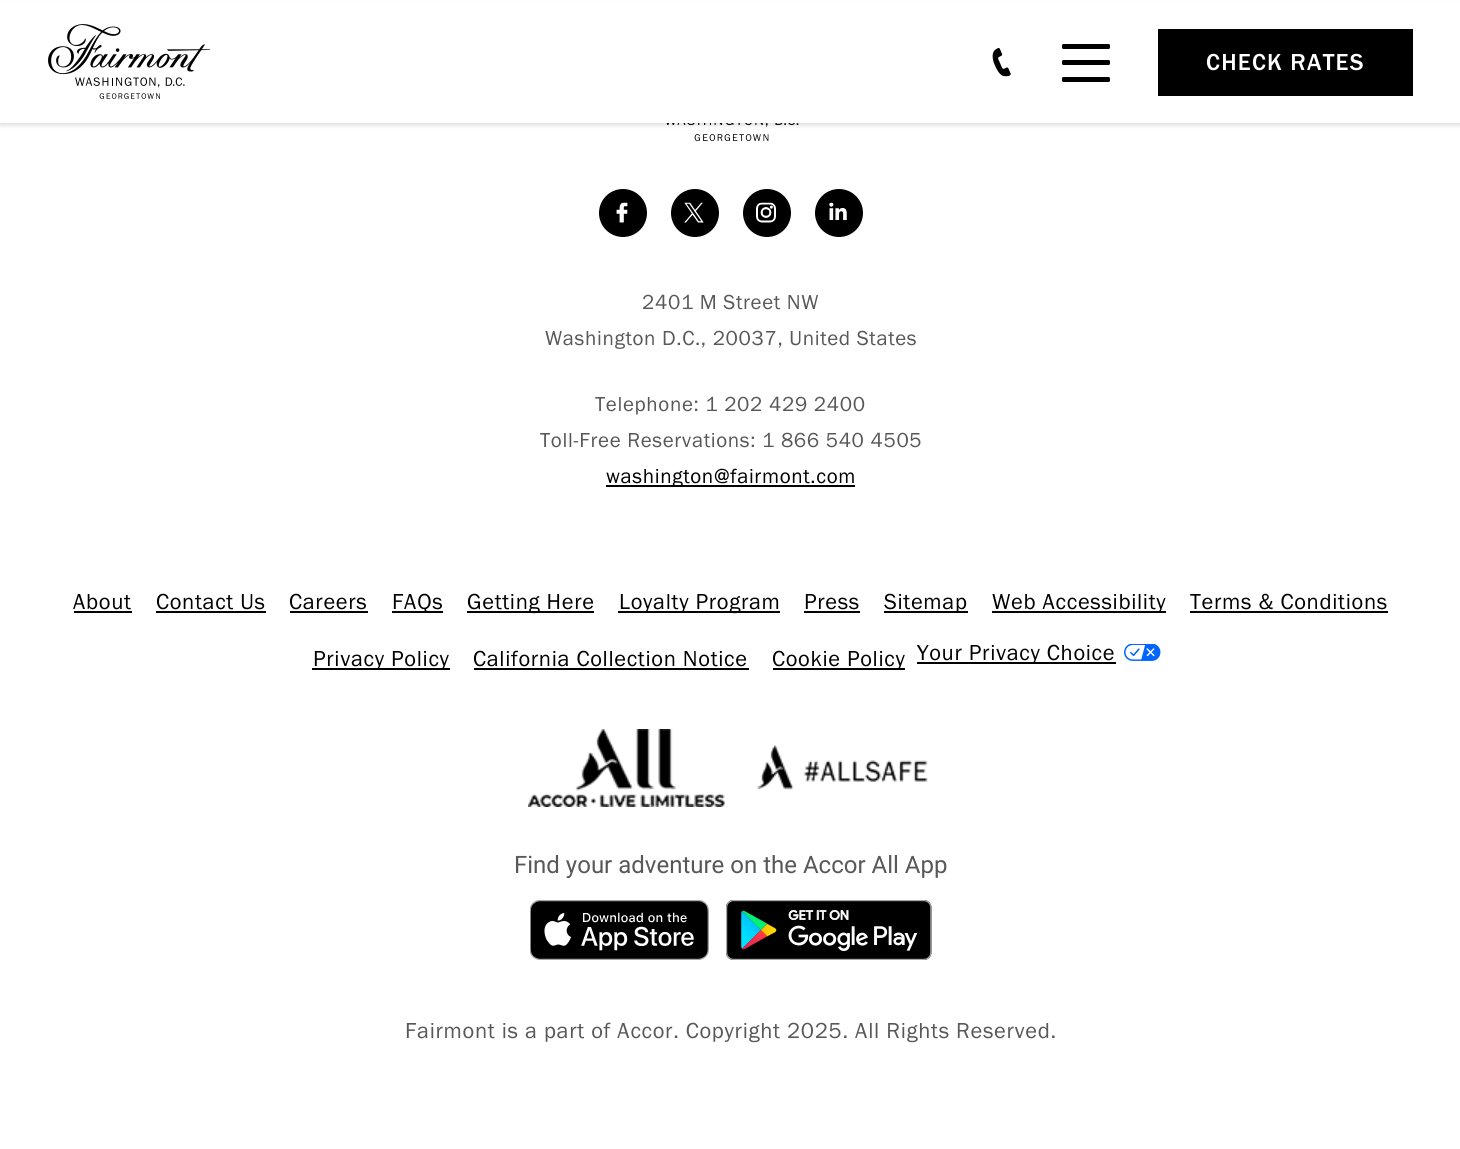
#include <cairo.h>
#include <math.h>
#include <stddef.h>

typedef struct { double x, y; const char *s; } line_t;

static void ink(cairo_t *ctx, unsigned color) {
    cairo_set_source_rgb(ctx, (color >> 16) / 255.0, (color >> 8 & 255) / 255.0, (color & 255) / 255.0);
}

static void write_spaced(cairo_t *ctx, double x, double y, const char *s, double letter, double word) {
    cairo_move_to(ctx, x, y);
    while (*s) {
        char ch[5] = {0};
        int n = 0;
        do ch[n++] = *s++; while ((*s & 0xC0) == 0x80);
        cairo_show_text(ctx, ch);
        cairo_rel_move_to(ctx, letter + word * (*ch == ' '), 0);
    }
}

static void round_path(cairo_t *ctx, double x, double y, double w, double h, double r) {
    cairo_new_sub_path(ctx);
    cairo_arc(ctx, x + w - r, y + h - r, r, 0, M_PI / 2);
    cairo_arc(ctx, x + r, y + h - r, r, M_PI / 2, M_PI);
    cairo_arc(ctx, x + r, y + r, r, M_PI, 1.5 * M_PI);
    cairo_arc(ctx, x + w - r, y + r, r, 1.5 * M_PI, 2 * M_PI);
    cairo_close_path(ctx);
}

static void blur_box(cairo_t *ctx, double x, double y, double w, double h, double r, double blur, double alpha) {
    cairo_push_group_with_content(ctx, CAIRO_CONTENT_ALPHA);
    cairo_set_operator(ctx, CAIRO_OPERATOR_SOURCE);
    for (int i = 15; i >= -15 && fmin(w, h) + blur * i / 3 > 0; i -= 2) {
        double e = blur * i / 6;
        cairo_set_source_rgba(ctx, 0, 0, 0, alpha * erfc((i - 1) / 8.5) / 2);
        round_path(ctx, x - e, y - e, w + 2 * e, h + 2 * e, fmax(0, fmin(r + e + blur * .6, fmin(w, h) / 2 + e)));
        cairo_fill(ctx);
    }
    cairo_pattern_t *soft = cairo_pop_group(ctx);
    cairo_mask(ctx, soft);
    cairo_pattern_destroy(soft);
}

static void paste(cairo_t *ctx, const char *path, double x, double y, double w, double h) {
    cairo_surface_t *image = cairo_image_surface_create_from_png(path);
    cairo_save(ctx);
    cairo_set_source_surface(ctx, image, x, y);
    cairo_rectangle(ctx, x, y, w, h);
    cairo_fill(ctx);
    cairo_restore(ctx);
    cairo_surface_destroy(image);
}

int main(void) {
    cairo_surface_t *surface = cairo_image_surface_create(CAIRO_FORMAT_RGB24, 1460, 1149);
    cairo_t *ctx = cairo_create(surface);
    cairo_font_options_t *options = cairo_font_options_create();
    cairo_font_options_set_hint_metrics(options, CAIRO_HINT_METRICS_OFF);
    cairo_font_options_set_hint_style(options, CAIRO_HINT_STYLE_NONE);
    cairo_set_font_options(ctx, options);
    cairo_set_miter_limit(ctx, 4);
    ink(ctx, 0xFFFFFF);
    cairo_paint(ctx);
    paste(ctx, "media/3.png", 666, 123, 133, 18);
    ink(ctx, 0x000000);
    blur_box(ctx, 0, 3, 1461, 123, 0, 1.5, 0.1);
    ink(ctx, 0xFFFFFF);
    cairo_rectangle(ctx, 0, 1, 1460, 122);
    cairo_fill(ctx);
    paste(ctx, "media/1.png", 48, 24, 162, 75);
    paste(ctx, "media/2.png", 992, 48, 19, 29);
    ink(ctx, 0x000000);
    round_path(ctx, 1062, 44, 48, 5, 1.5);
    cairo_fill(ctx);
    round_path(ctx, 1062, 60, 48, 5, 1.5);
    cairo_fill(ctx);
    round_path(ctx, 1062, 77, 48, 5, 1.5);
    cairo_fill(ctx);
    cairo_rectangle(ctx, 1158, 29, 255, 67);
    cairo_fill(ctx);
    cairo_select_font_face(ctx, "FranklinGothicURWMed", CAIRO_FONT_SLANT_NORMAL, CAIRO_FONT_WEIGHT_NORMAL);
    cairo_set_font_size(ctx, 24);
    ink(ctx, 0xFFFFFF);
    write_spaced(ctx, 1206, 70, "CHECK RATES", 1.25, 0);
    ink(ctx, 0x000000);
    cairo_new_path(ctx);
    cairo_arc(ctx, 623, 213, 23, 0, 2 * M_PI);
    cairo_fill_preserve(ctx);
    cairo_stroke(ctx);
    paste(ctx, "media/4.png", 616, 202, 12, 21);
    cairo_arc(ctx, 695, 213, 23, 0, 2 * M_PI);
    cairo_fill_preserve(ctx);
    cairo_stroke(ctx);
    paste(ctx, "media/5.png", 684, 202, 20, 21);
    cairo_arc(ctx, 767, 213, 23, 0, 2 * M_PI);
    cairo_fill_preserve(ctx);
    cairo_stroke(ctx);
    paste(ctx, "media/6.png", 756, 202, 20, 21);
    cairo_arc(ctx, 839, 213, 23, 0, 2 * M_PI);
    cairo_fill_preserve(ctx);
    cairo_stroke(ctx);
    paste(ctx, "media/7.png", 829, 202, 18, 18);
    cairo_select_font_face(ctx, "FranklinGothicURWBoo", CAIRO_FONT_SLANT_NORMAL, CAIRO_FONT_WEIGHT_NORMAL);
    cairo_set_font_size(ctx, 21);
    ink(ctx, 0x585858);
    {
        static const line_t items[] = {
            {642, 309, "2401 M Street NW"},
            {545, 345, "Washington D.C., 20037, United States"},
            {595, 411, "Telephone: 1 202 429 2400"},
            {540, 447, "Toll-Free Reservations: 1 866 540 4505"},
        };
        for (size_t i = 0; i < sizeof items / sizeof *items; i++) {
            write_spaced(ctx, items[i].x, items[i].y, items[i].s, 0.65, 0);
        }
    }
    ink(ctx, 0x000000);
    cairo_rectangle(ctx, 606, 485, 249, 2);
    cairo_fill(ctx);
    write_spaced(ctx, 606, 483, "washington@fairmont.com", 0.65, 0);
    cairo_set_font_size(ctx, 22.5);
    write_spaced(ctx, 73, 609, "About", 0.68, 0);
    cairo_rectangle(ctx, 74, 611, 58, 2);
    cairo_fill(ctx);
    write_spaced(ctx, 156, 609, "Contact Us", 0.68, 0);
    cairo_rectangle(ctx, 156, 611, 110, 2);
    cairo_fill(ctx);
    write_spaced(ctx, 289, 609, "Careers", 0.68, 0);
    cairo_rectangle(ctx, 290, 611, 78, 2);
    cairo_fill(ctx);
    cairo_rectangle(ctx, 392, 611, 51, 2);
    cairo_fill(ctx);
    write_spaced(ctx, 392, 609, "FAQs", 0.68, 0);
    cairo_rectangle(ctx, 467, 611, 127, 2);
    cairo_fill(ctx);
    write_spaced(ctx, 467, 609, "Getting Here", 0.68, 0);
    cairo_rectangle(ctx, 618, 611, 162, 2);
    cairo_fill(ctx);
    write_spaced(ctx, 619, 609, "Loyalty Program", 0.68, 0);
    write_spaced(ctx, 804, 609, "Press", 0.68, 0);
    cairo_rectangle(ctx, 804, 611, 56, 2);
    cairo_fill(ctx);
    cairo_rectangle(ctx, 884, 611, 84, 2);
    cairo_fill(ctx);
    write_spaced(ctx, 884, 609, "Sitemap", 0.68, 0);
    cairo_rectangle(ctx, 992, 611, 174, 2);
    cairo_fill(ctx);
    write_spaced(ctx, 992, 609, "Web Accessibility", 0.68, 0);
    write_spaced(ctx, 1190, 609, "Terms & Conditions", 0.68, 0);
    cairo_rectangle(ctx, 1190, 611, 198, 2);
    cairo_fill(ctx);
    cairo_rectangle(ctx, 312, 668, 138, 2);
    cairo_fill(ctx);
    write_spaced(ctx, 313, 666, "Privacy Policy", 0.68, 0);
    write_spaced(ctx, 473, 666, "California Collection Notice", 0.68, 0);
    cairo_rectangle(ctx, 474, 668, 275, 2);
    cairo_fill(ctx);
    cairo_rectangle(ctx, 773, 668, 132, 2);
    cairo_fill(ctx);
    write_spaced(ctx, 772, 666, "Cookie Policy", 0.68, 0);
    cairo_rectangle(ctx, 917, 662, 199, 2);
    cairo_fill(ctx);
    write_spaced(ctx, 917, 660, "Your Privacy Choice", 0.68, 0);
    paste(ctx, "media/8.png", 1124, 644, 37, 17);
    paste(ctx, "media/9.png", 528, 729, 197, 78);
    paste(ctx, "media/10.png", 757, 745, 171, 45);
    cairo_select_font_face(ctx, "Roboto", CAIRO_FONT_SLANT_NORMAL, CAIRO_FONT_WEIGHT_NORMAL);
    cairo_set_font_size(ctx, 24);
    ink(ctx, 0x585858);
    cairo_move_to(ctx, 514, 873);
    cairo_show_text(ctx, "Find your adventure on the Accor All App");
    paste(ctx, "media/11.png", 530, 900, 179, 60);
    paste(ctx, "media/12.png", 726, 900, 206, 60);
    cairo_select_font_face(ctx, "FranklinGothicURWBoo", CAIRO_FONT_SLANT_NORMAL, CAIRO_FONT_WEIGHT_NORMAL);
    cairo_set_font_size(ctx, 22.5);
    write_spaced(ctx, 405, 1038, "Fairmont is a part of Accor. Copyright 2025. All Rights Reserved.", 0.68, 0);
    cairo_surface_write_to_png(surface, "image.png");
    cairo_font_options_destroy(options);
    cairo_destroy(ctx);
    cairo_surface_destroy(surface);
    return 0;
}
